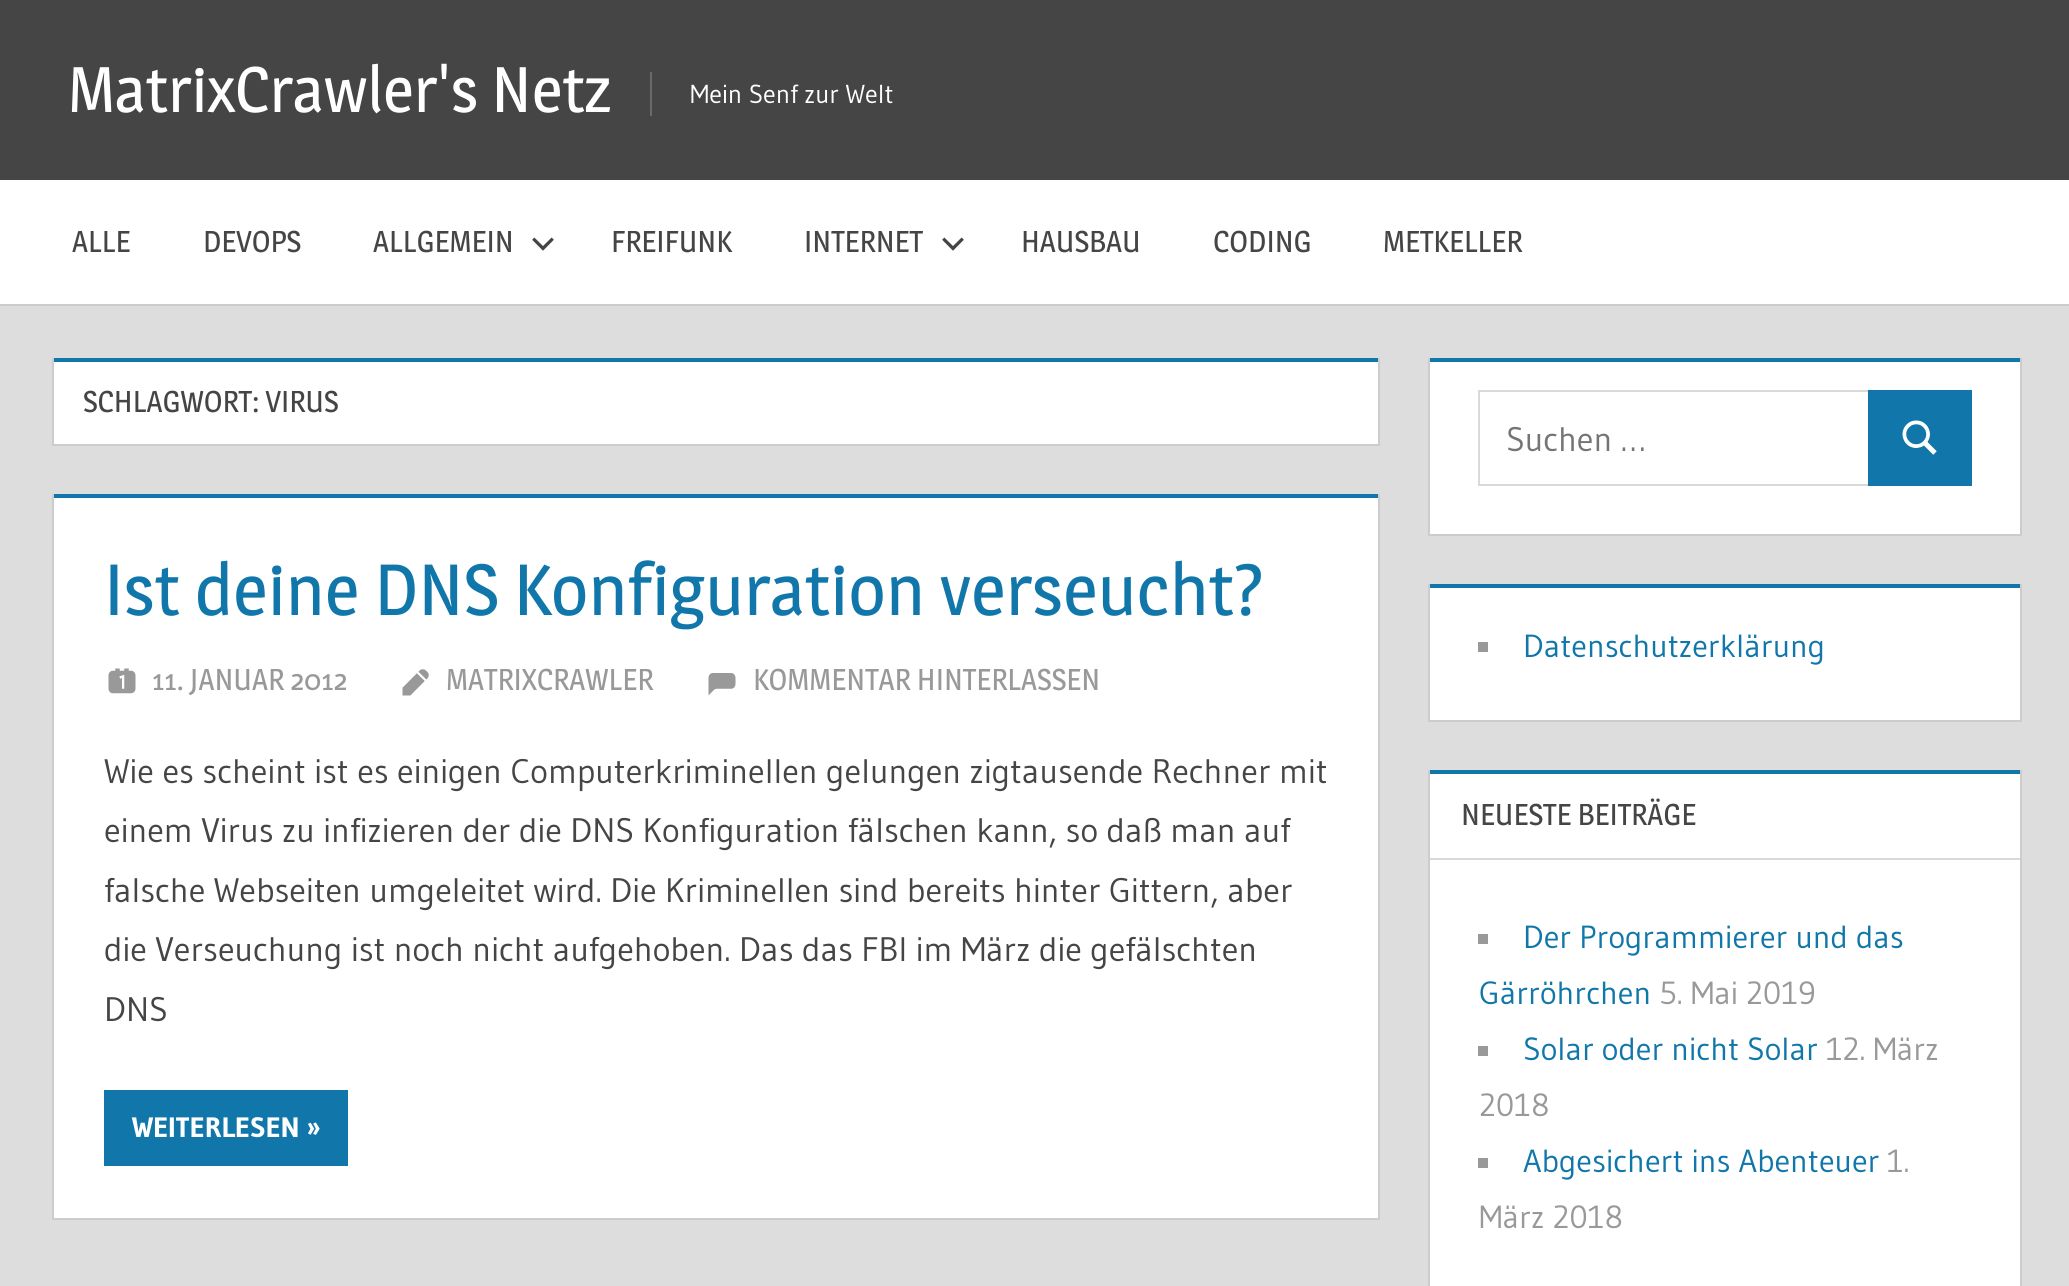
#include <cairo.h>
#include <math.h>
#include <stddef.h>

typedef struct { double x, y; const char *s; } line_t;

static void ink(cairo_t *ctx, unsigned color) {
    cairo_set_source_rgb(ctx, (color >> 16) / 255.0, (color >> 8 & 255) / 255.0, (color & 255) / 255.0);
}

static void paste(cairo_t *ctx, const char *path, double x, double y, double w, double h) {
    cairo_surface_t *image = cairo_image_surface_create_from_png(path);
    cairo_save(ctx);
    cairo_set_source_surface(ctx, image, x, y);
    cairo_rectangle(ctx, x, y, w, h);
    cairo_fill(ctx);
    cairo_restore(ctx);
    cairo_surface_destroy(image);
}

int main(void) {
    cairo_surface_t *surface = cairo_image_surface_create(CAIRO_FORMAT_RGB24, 2069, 1286);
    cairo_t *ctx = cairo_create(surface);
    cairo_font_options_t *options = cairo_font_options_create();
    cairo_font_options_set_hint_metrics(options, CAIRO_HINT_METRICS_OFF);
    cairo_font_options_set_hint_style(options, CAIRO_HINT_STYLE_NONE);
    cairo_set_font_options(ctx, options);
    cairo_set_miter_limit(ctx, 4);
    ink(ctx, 0xDDDDDD);
    cairo_paint(ctx);
    ink(ctx, 0x454545);
    cairo_rectangle(ctx, 0, 0, 2069, 180);
    cairo_fill(ctx);
    cairo_select_font_face(ctx, "Magra", CAIRO_FONT_SLANT_NORMAL, CAIRO_FONT_WEIGHT_NORMAL);
    cairo_set_font_size(ctx, 64);
    ink(ctx, 0xFFFFFF);
    cairo_move_to(ctx, 68, 112);
    cairo_show_text(ctx, "MatrixCrawler's Netz");
    ink(ctx, 0x6A6A6A);
    cairo_rectangle(ctx, 650, 72, 2, 44);
    cairo_fill(ctx);
    cairo_select_font_face(ctx, "Gudea", CAIRO_FONT_SLANT_NORMAL, CAIRO_FONT_WEIGHT_NORMAL);
    cairo_set_font_size(ctx, 26);
    ink(ctx, 0xFFFFFF);
    cairo_move_to(ctx, 690, 103);
    cairo_show_text(ctx, "Mein Senf zur Welt");
    cairo_rectangle(ctx, 0, 180, 2069, 124);
    cairo_fill(ctx);
    ink(ctx, 0xCCCCCC);
    cairo_rectangle(ctx, 0, 304, 2069, 2);
    cairo_fill(ctx);
    cairo_select_font_face(ctx, "Magra", CAIRO_FONT_SLANT_NORMAL, CAIRO_FONT_WEIGHT_NORMAL);
    cairo_set_font_size(ctx, 30);
    ink(ctx, 0x454545);
    {
        static const line_t items[] = {
            {72, 252, "ALLE"},
            {203, 252, "DEVOPS"},
            {373, 252, "ALLGEMEIN"},
        };
        for (size_t i = 0; i < sizeof items / sizeof *items; i++) {
            cairo_move_to(ctx, items[i].x, items[i].y);
            cairo_show_text(ctx, items[i].s);
        }
    }
    paste(ctx, "media/1.png", 532, 237, 22, 14);
    cairo_move_to(ctx, 611, 252);
    cairo_show_text(ctx, "FREIFUNK");
    cairo_move_to(ctx, 804, 252);
    cairo_show_text(ctx, "INTERNET");
    paste(ctx, "media/1.png", 942, 237, 22, 14);
    {
        static const line_t items[] = {
            {1021, 252, "HAUSBAU"},
            {1213, 252, "CODING"},
            {1383, 252, "METKELLER"},
        };
        for (size_t i = 0; i < sizeof items / sizeof *items; i++) {
            cairo_move_to(ctx, items[i].x, items[i].y);
            cairo_show_text(ctx, items[i].s);
        }
    }
    ink(ctx, 0xFFFFFF);
    cairo_rectangle(ctx, 52, 358, 1328, 88);
    cairo_fill(ctx);
    ink(ctx, 0xCCCCCC);
    cairo_new_path(ctx);
    cairo_move_to(ctx, 1380, 358);
    cairo_line_to(ctx, 1380, 446);
    cairo_line_to(ctx, 1378, 444);
    cairo_line_to(ctx, 1378, 358);
    cairo_close_path(ctx);
    cairo_fill(ctx);
    cairo_set_source_rgba(ctx, 0, 0, 0, 0.2);
    cairo_new_path(ctx);
    cairo_move_to(ctx, 1380, 446);
    cairo_line_to(ctx, 52, 446);
    cairo_line_to(ctx, 54, 444);
    cairo_line_to(ctx, 1378, 444);
    cairo_close_path(ctx);
    cairo_fill(ctx);
    cairo_new_path(ctx);
    cairo_move_to(ctx, 52, 446);
    cairo_line_to(ctx, 52, 358);
    cairo_line_to(ctx, 54, 358);
    cairo_line_to(ctx, 54, 444);
    cairo_close_path(ctx);
    cairo_fill(ctx);
    ink(ctx, 0x1177AA);
    cairo_rectangle(ctx, 54, 358, 1324, 4);
    cairo_fill(ctx);
    ink(ctx, 0x454545);
    cairo_move_to(ctx, 83, 412);
    cairo_show_text(ctx, "SCHLAGWORT: VIRUS");
    ink(ctx, 0xFFFFFF);
    cairo_rectangle(ctx, 52, 494, 1328, 726);
    cairo_fill(ctx);
    ink(ctx, 0x1177AA);
    cairo_rectangle(ctx, 54, 494, 1324, 4);
    cairo_fill(ctx);
    ink(ctx, 0xCCCCCC);
    cairo_new_path(ctx);
    cairo_move_to(ctx, 1380, 494);
    cairo_line_to(ctx, 1380, 1220);
    cairo_line_to(ctx, 1378, 1218);
    cairo_line_to(ctx, 1378, 494);
    cairo_close_path(ctx);
    cairo_fill(ctx);
    cairo_set_source_rgba(ctx, 0, 0, 0, 0.2);
    cairo_new_path(ctx);
    cairo_move_to(ctx, 1380, 1220);
    cairo_line_to(ctx, 52, 1220);
    cairo_line_to(ctx, 54, 1218);
    cairo_line_to(ctx, 1378, 1218);
    cairo_close_path(ctx);
    cairo_fill(ctx);
    cairo_new_path(ctx);
    cairo_move_to(ctx, 52, 1220);
    cairo_line_to(ctx, 52, 494);
    cairo_line_to(ctx, 54, 494);
    cairo_line_to(ctx, 54, 1218);
    cairo_close_path(ctx);
    cairo_fill(ctx);
    cairo_set_font_size(ctx, 72);
    ink(ctx, 0x1177AA);
    cairo_move_to(ctx, 104, 615);
    cairo_show_text(ctx, "Ist deine DNS Konfiguration verseucht?");
    paste(ctx, "media/2.png", 108, 668, 28, 26);
    cairo_set_font_size(ctx, 30);
    ink(ctx, 0x999999);
    cairo_move_to(ctx, 152, 690);
    cairo_show_text(ctx, "11. JANUAR 2012");
    paste(ctx, "media/3.png", 402, 669, 27, 27);
    cairo_move_to(ctx, 446, 690);
    cairo_show_text(ctx, "MATRIXCRAWLER");
    paste(ctx, "media/4.png", 708, 673, 28, 23);
    cairo_move_to(ctx, 753, 690);
    cairo_show_text(ctx, "KOMMENTAR HINTERLASSEN");
    cairo_select_font_face(ctx, "Gudea", CAIRO_FONT_SLANT_NORMAL, CAIRO_FONT_WEIGHT_NORMAL);
    cairo_set_font_size(ctx, 34);
    ink(ctx, 0x454545);
    {
        static const line_t items[] = {
            {104, 783, "Wie es scheint ist es einigen Computerkriminellen gelungen zigtausende Rechner mit"},
            {104, 842, "einem Virus zu infizieren der die DNS Konfiguration fälschen kann, so daß man auf"},
            {104, 902, "falsche Webseiten umgeleitet wird. Die Kriminellen sind bereits hinter Gittern, aber"},
            {104, 961, "die Verseuchung ist noch nicht aufgehoben. Das das FBI im März die gefälschten"},
            {104, 1021, "DNS"},
        };
        for (size_t i = 0; i < sizeof items / sizeof *items; i++) {
            cairo_move_to(ctx, items[i].x, items[i].y);
            cairo_show_text(ctx, items[i].s);
        }
    }
    ink(ctx, 0x1177AA);
    cairo_rectangle(ctx, 104, 1090, 244, 76);
    cairo_fill(ctx);
    cairo_select_font_face(ctx, "Gudea", CAIRO_FONT_SLANT_NORMAL, CAIRO_FONT_WEIGHT_BOLD);
    cairo_set_font_size(ctx, 28);
    ink(ctx, 0xFFFFFF);
    cairo_move_to(ctx, 132, 1137);
    cairo_show_text(ctx, "WEITERLESEN »");
    cairo_rectangle(ctx, 1428, 358, 594, 178);
    cairo_fill(ctx);
    ink(ctx, 0x1177AA);
    cairo_rectangle(ctx, 1430, 358, 590, 4);
    cairo_fill(ctx);
    ink(ctx, 0xCCCCCC);
    cairo_new_path(ctx);
    cairo_move_to(ctx, 2022, 358);
    cairo_line_to(ctx, 2022, 536);
    cairo_line_to(ctx, 2020, 534);
    cairo_line_to(ctx, 2020, 358);
    cairo_close_path(ctx);
    cairo_fill(ctx);
    cairo_set_source_rgba(ctx, 0, 0, 0, 0.2);
    cairo_new_path(ctx);
    cairo_move_to(ctx, 2022, 536);
    cairo_line_to(ctx, 1428, 536);
    cairo_line_to(ctx, 1430, 534);
    cairo_line_to(ctx, 2020, 534);
    cairo_close_path(ctx);
    cairo_fill(ctx);
    cairo_new_path(ctx);
    cairo_move_to(ctx, 1428, 536);
    cairo_line_to(ctx, 1428, 358);
    cairo_line_to(ctx, 1430, 358);
    cairo_line_to(ctx, 1430, 534);
    cairo_close_path(ctx);
    cairo_fill(ctx);
    cairo_rectangle(ctx, 1479, 391, 390, 94);
    ink(ctx, 0xD9D9D9);
    cairo_stroke(ctx);
    cairo_select_font_face(ctx, "Gudea", CAIRO_FONT_SLANT_NORMAL, CAIRO_FONT_WEIGHT_NORMAL);
    cairo_set_font_size(ctx, 34);
    ink(ctx, 0x757575);
    cairo_move_to(ctx, 1506, 451);
    cairo_show_text(ctx, "Suchen …");
    ink(ctx, 0x1177AA);
    cairo_rectangle(ctx, 1868, 390, 104, 96);
    cairo_fill(ctx);
    paste(ctx, "media/5.png", 1902, 420, 35, 35);
    ink(ctx, 0xFFFFFF);
    cairo_rectangle(ctx, 1428, 584, 594, 138);
    cairo_fill(ctx);
    ink(ctx, 0x1177AA);
    cairo_rectangle(ctx, 1430, 584, 590, 4);
    cairo_fill(ctx);
    ink(ctx, 0xCCCCCC);
    cairo_new_path(ctx);
    cairo_move_to(ctx, 2022, 584);
    cairo_line_to(ctx, 2022, 722);
    cairo_line_to(ctx, 2020, 720);
    cairo_line_to(ctx, 2020, 584);
    cairo_close_path(ctx);
    cairo_fill(ctx);
    cairo_set_source_rgba(ctx, 0, 0, 0, 0.2);
    cairo_new_path(ctx);
    cairo_move_to(ctx, 2022, 722);
    cairo_line_to(ctx, 1428, 722);
    cairo_line_to(ctx, 1430, 720);
    cairo_line_to(ctx, 2020, 720);
    cairo_close_path(ctx);
    cairo_fill(ctx);
    cairo_new_path(ctx);
    cairo_move_to(ctx, 1428, 722);
    cairo_line_to(ctx, 1428, 584);
    cairo_line_to(ctx, 1430, 584);
    cairo_line_to(ctx, 1430, 720);
    cairo_close_path(ctx);
    cairo_fill(ctx);
    ink(ctx, 0x999999);
    cairo_rectangle(ctx, 1478, 642, 10, 10);
    cairo_fill(ctx);
    cairo_set_font_size(ctx, 32);
    ink(ctx, 0x1177AA);
    cairo_move_to(ctx, 1523, 657);
    cairo_show_text(ctx, "Datenschutzerklärung");
    ink(ctx, 0xFFFFFF);
    cairo_rectangle(ctx, 1430, 774, 590, 512);
    cairo_fill(ctx);
    ink(ctx, 0x1177AA);
    cairo_rectangle(ctx, 1430, 770, 590, 4);
    cairo_fill(ctx);
    ink(ctx, 0xCCCCCC);
    cairo_new_path(ctx);
    cairo_move_to(ctx, 2022, 770);
    cairo_line_to(ctx, 2022, 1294);
    cairo_line_to(ctx, 2020, 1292);
    cairo_line_to(ctx, 2020, 770);
    cairo_close_path(ctx);
    cairo_fill(ctx);
    cairo_new_path(ctx);
    cairo_move_to(ctx, 1428, 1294);
    cairo_line_to(ctx, 1428, 770);
    cairo_line_to(ctx, 1430, 770);
    cairo_line_to(ctx, 1430, 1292);
    cairo_close_path(ctx);
    cairo_fill(ctx);
    ink(ctx, 0xD9D9D9);
    cairo_rectangle(ctx, 1430, 858, 590, 2);
    cairo_fill(ctx);
    cairo_select_font_face(ctx, "Magra", CAIRO_FONT_SLANT_NORMAL, CAIRO_FONT_WEIGHT_NORMAL);
    cairo_set_font_size(ctx, 30);
    ink(ctx, 0x454545);
    cairo_move_to(ctx, 1461, 825);
    cairo_show_text(ctx, "NEUESTE BEITRÄGE");
    ink(ctx, 0x999999);
    cairo_rectangle(ctx, 1478, 934, 10, 10);
    cairo_fill(ctx);
    cairo_select_font_face(ctx, "Gudea", CAIRO_FONT_SLANT_NORMAL, CAIRO_FONT_WEIGHT_NORMAL);
    cairo_set_font_size(ctx, 32);
    ink(ctx, 0x1177AA);
    cairo_move_to(ctx, 1523, 948);
    cairo_show_text(ctx, "Der Programmierer und das");
    cairo_move_to(ctx, 1479, 1004);
    cairo_show_text(ctx, "Gärröhrchen");
    ink(ctx, 0x999999);
    cairo_move_to(ctx, 1659, 1004);
    cairo_show_text(ctx, "5. Mai 2019");
    cairo_rectangle(ctx, 1478, 1046, 10, 10);
    cairo_fill(ctx);
    ink(ctx, 0x1177AA);
    cairo_move_to(ctx, 1523, 1060);
    cairo_show_text(ctx, "Solar oder nicht Solar");
    ink(ctx, 0x999999);
    cairo_move_to(ctx, 1826, 1060);
    cairo_show_text(ctx, "12. März");
    cairo_move_to(ctx, 1479, 1116);
    cairo_show_text(ctx, "2018");
    cairo_rectangle(ctx, 1478, 1158, 10, 10);
    cairo_fill(ctx);
    ink(ctx, 0x1177AA);
    cairo_move_to(ctx, 1523, 1172);
    cairo_show_text(ctx, "Abgesichert ins Abenteuer");
    ink(ctx, 0x999999);
    cairo_move_to(ctx, 1887, 1172);
    cairo_show_text(ctx, "1.");
    cairo_move_to(ctx, 1479, 1228);
    cairo_show_text(ctx, "März 2018");
    cairo_surface_write_to_png(surface, "image.png");
    cairo_font_options_destroy(options);
    cairo_destroy(ctx);
    cairo_surface_destroy(surface);
    return 0;
}
